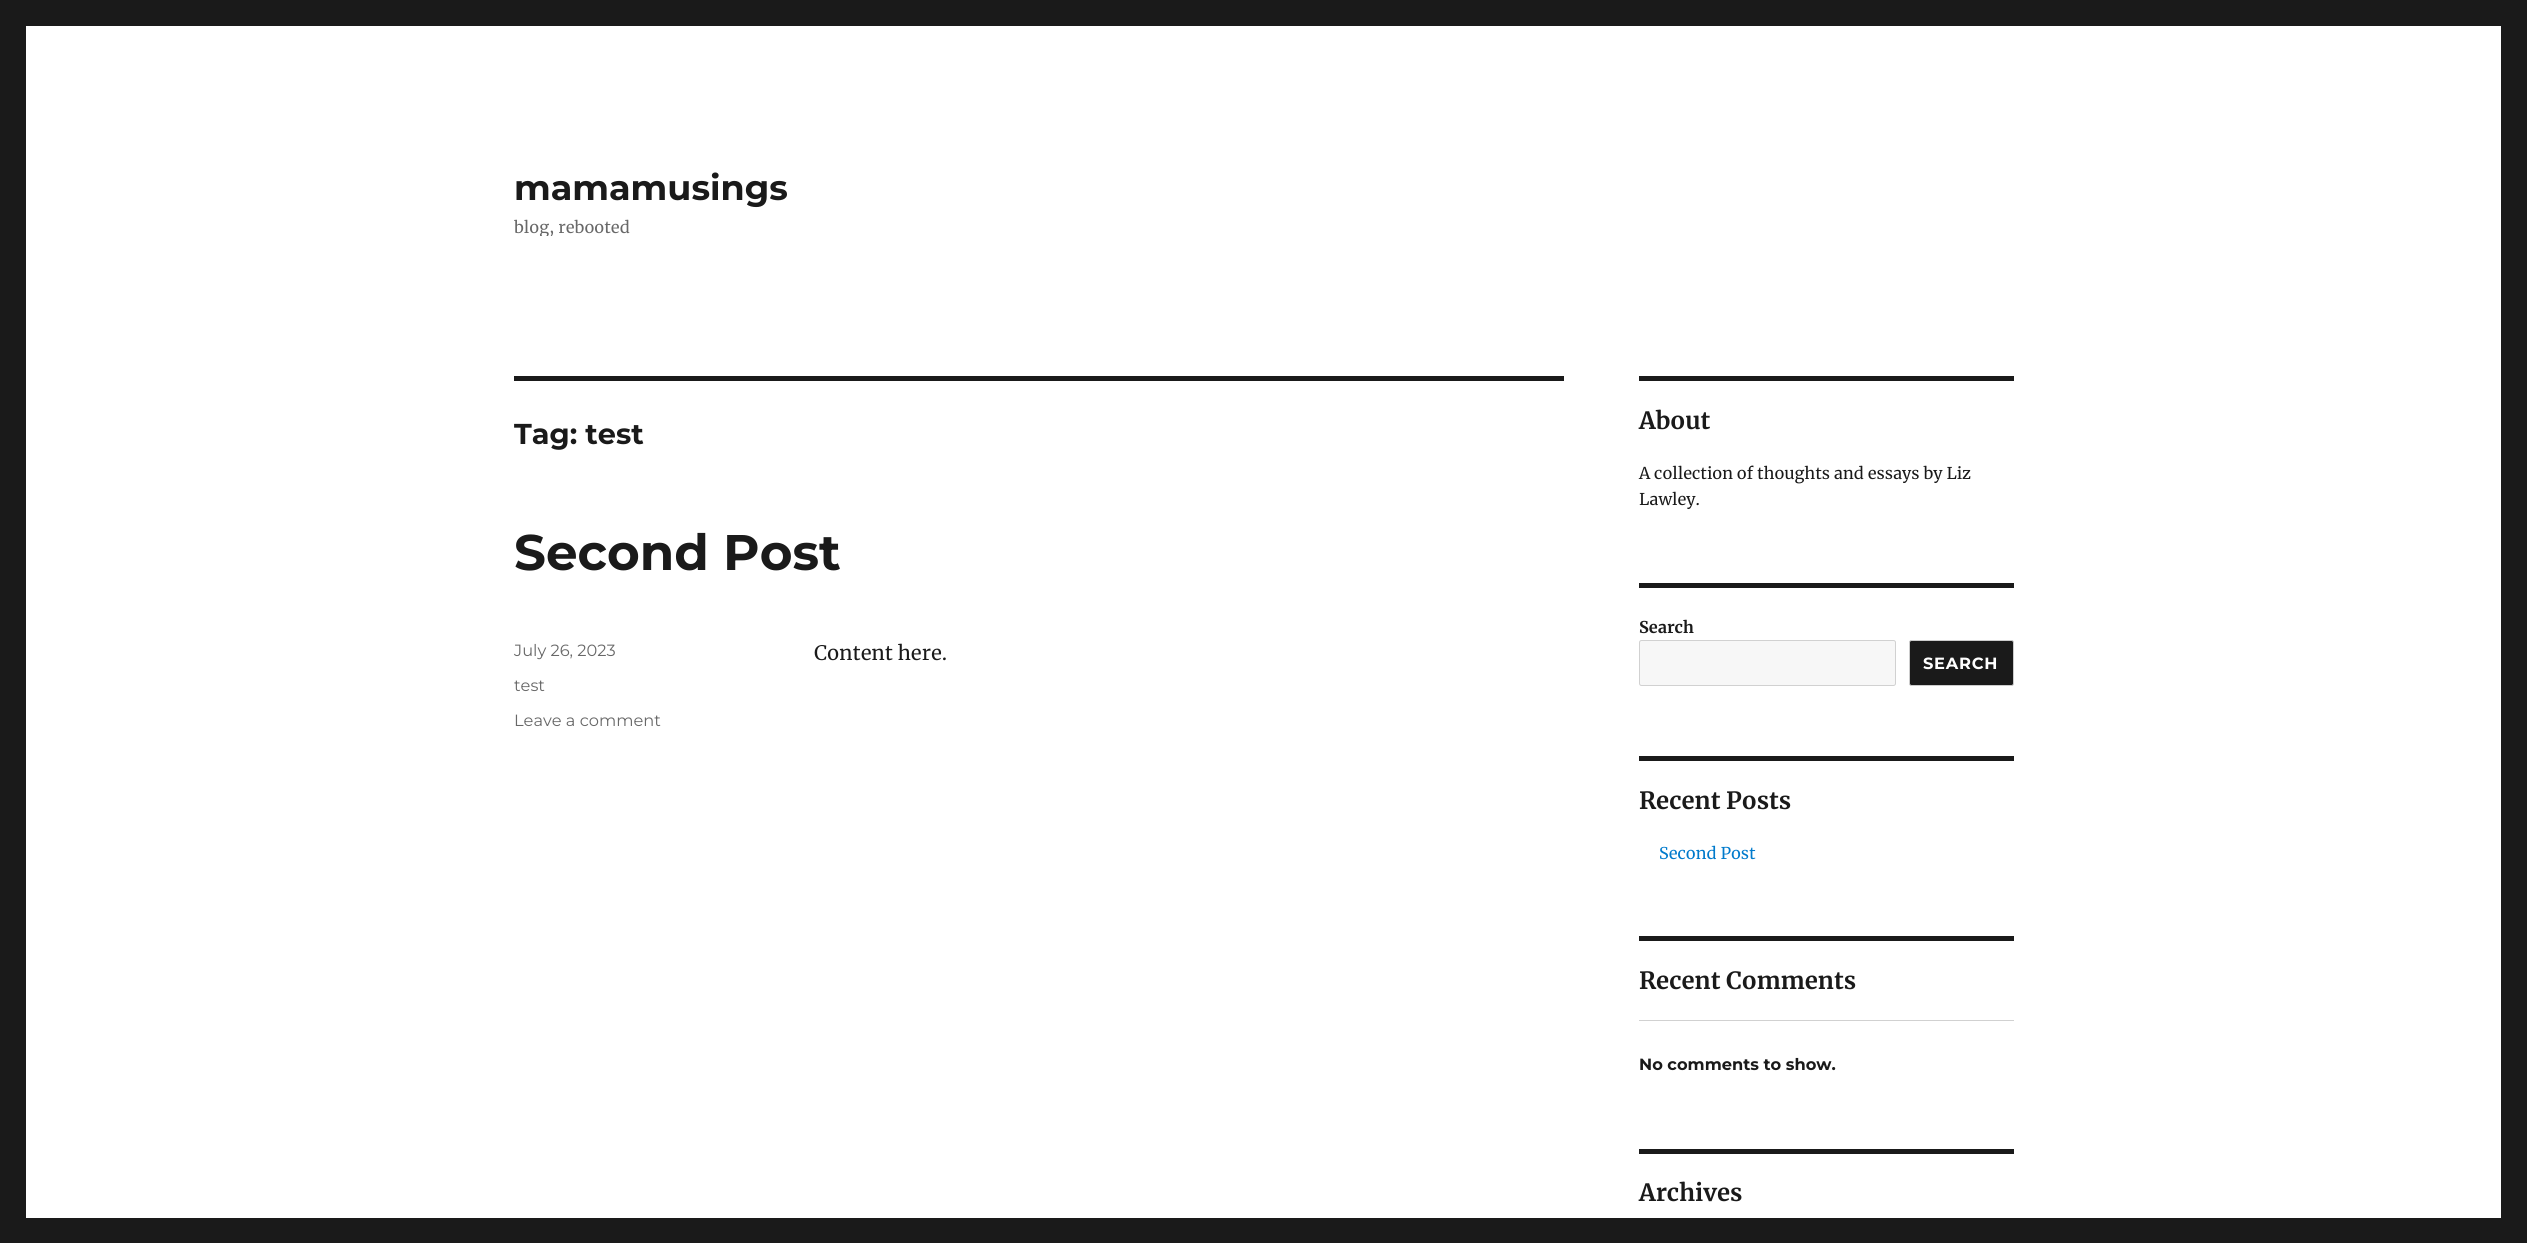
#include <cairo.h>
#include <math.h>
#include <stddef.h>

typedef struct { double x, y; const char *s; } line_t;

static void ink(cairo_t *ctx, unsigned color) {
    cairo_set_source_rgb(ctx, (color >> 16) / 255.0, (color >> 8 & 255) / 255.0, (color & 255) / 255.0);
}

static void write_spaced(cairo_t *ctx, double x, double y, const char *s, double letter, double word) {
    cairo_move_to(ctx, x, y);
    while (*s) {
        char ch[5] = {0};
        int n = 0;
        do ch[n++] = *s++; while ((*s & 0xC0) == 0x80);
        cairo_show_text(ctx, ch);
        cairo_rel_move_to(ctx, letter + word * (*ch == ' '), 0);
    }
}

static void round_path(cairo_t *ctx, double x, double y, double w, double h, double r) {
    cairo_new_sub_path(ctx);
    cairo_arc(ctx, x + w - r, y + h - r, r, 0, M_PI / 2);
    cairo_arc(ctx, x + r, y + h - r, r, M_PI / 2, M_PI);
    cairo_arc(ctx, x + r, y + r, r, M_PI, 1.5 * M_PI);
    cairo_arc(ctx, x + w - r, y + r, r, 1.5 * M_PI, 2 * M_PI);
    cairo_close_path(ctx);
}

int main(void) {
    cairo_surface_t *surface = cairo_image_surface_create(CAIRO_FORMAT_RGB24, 2527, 1243);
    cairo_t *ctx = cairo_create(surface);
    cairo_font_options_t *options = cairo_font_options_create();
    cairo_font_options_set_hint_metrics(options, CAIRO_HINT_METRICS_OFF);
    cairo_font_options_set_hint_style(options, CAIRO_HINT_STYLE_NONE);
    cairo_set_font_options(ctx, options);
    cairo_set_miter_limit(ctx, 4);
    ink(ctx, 0x1A1A1A);
    cairo_paint(ctx);
    ink(ctx, 0xFFFFFF);
    cairo_rectangle(ctx, 26, 26, 2475, 1192);
    cairo_fill(ctx);
    cairo_select_font_face(ctx, "Montserrat Thin", CAIRO_FONT_SLANT_NORMAL, CAIRO_FONT_WEIGHT_NORMAL);
    cairo_set_font_size(ctx, 35);
    ink(ctx, 0x1A1A1A);
    cairo_move_to(ctx, 514, 200);
    cairo_show_text(ctx, "mamamusings");
    cairo_save(ctx);
    cairo_rectangle(ctx, 514, 166, 274, 70);
    cairo_clip(ctx);
    cairo_select_font_face(ctx, "Merriweather", CAIRO_FONT_SLANT_NORMAL, CAIRO_FONT_WEIGHT_NORMAL);
    cairo_set_font_size(ctx, 16.25);
    ink(ctx, 0x686868);
    cairo_move_to(ctx, 514, 233);
    cairo_show_text(ctx, "blog, rebooted");
    cairo_restore(ctx);
    cairo_rectangle(ctx, 514, 376, 1050, 5);
    cairo_fill(ctx);
    cairo_set_font_size(ctx, 28.75);
    cairo_move_to(ctx, 514, 444);
    cairo_show_text(ctx, "Tag: test");
    cairo_set_font_size(ctx, 50);
    cairo_move_to(ctx, 514, 570);
    cairo_show_text(ctx, "Second Post");
    cairo_select_font_face(ctx, "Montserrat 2 Thin", CAIRO_FONT_SLANT_NORMAL, CAIRO_FONT_WEIGHT_NORMAL);
    cairo_set_font_size(ctx, 16.25);
    ink(ctx, 0x686868);
    {
        static const line_t items[] = {
            {514, 656, "July 26, 2023"},
            {514, 691, "test"},
            {514, 726, "Leave a comment"},
        };
        for (size_t i = 0; i < sizeof items / sizeof *items; i++) {
            cairo_move_to(ctx, items[i].x, items[i].y);
            cairo_show_text(ctx, items[i].s);
        }
    }
    cairo_select_font_face(ctx, "Merriweather", CAIRO_FONT_SLANT_NORMAL, CAIRO_FONT_WEIGHT_NORMAL);
    cairo_set_font_size(ctx, 20);
    ink(ctx, 0x1A1A1A);
    cairo_move_to(ctx, 814, 660);
    cairo_show_text(ctx, "Content here.");
    cairo_rectangle(ctx, 1639, 376, 375, 5);
    cairo_fill(ctx);
    cairo_select_font_face(ctx, "Merriweather", CAIRO_FONT_SLANT_NORMAL, CAIRO_FONT_WEIGHT_BOLD);
    cairo_set_font_size(ctx, 23.75);
    cairo_move_to(ctx, 1639, 429);
    cairo_show_text(ctx, "About");
    cairo_select_font_face(ctx, "Merriweather", CAIRO_FONT_SLANT_NORMAL, CAIRO_FONT_WEIGHT_NORMAL);
    cairo_set_font_size(ctx, 16.25);
    cairo_move_to(ctx, 1639, 479);
    cairo_show_text(ctx, "A collection of thoughts and essays by Liz");
    cairo_move_to(ctx, 1639, 505);
    cairo_show_text(ctx, "Lawley.");
    cairo_rectangle(ctx, 1639, 583, 375, 5);
    cairo_fill(ctx);
    cairo_select_font_face(ctx, "Merriweather", CAIRO_FONT_SLANT_NORMAL, CAIRO_FONT_WEIGHT_BOLD);
    cairo_move_to(ctx, 1639, 633);
    cairo_show_text(ctx, "Search");
    ink(ctx, 0xF7F7F7);
    round_path(ctx, 1639.5, 640.5, 256, 45, 2);
    cairo_fill_preserve(ctx);
    ink(ctx, 0xD1D1D1);
    cairo_set_line_width(ctx, 1);
    cairo_stroke(ctx);
    ink(ctx, 0x1A1A1A);
    round_path(ctx, 1909.5, 640.5, 104, 45, 2);
    cairo_fill_preserve(ctx);
    ink(ctx, 0xCCCCCC);
    cairo_stroke(ctx);
    cairo_select_font_face(ctx, "Montserrat Thin", CAIRO_FONT_SLANT_NORMAL, CAIRO_FONT_WEIGHT_NORMAL);
    ink(ctx, 0xFFFFFF);
    write_spaced(ctx, 1923, 669, "SEARCH", 0.75, 0);
    ink(ctx, 0x1A1A1A);
    cairo_rectangle(ctx, 1639, 756, 375, 5);
    cairo_fill(ctx);
    cairo_select_font_face(ctx, "Merriweather", CAIRO_FONT_SLANT_NORMAL, CAIRO_FONT_WEIGHT_BOLD);
    cairo_set_font_size(ctx, 23.75);
    cairo_move_to(ctx, 1639, 809);
    cairo_show_text(ctx, "Recent Posts");
    cairo_select_font_face(ctx, "Merriweather", CAIRO_FONT_SLANT_NORMAL, CAIRO_FONT_WEIGHT_NORMAL);
    cairo_set_font_size(ctx, 16.25);
    ink(ctx, 0x007ACC);
    cairo_move_to(ctx, 1659, 859);
    cairo_show_text(ctx, "Second Post");
    ink(ctx, 0x1A1A1A);
    cairo_rectangle(ctx, 1639, 936, 375, 5);
    cairo_fill(ctx);
    cairo_select_font_face(ctx, "Merriweather", CAIRO_FONT_SLANT_NORMAL, CAIRO_FONT_WEIGHT_BOLD);
    cairo_set_font_size(ctx, 23.75);
    cairo_move_to(ctx, 1639, 989);
    cairo_show_text(ctx, "Recent Comments");
    ink(ctx, 0xD1D1D1);
    cairo_rectangle(ctx, 1639, 1020, 375, 1);
    cairo_fill(ctx);
    cairo_select_font_face(ctx, "Montserrat Thin", CAIRO_FONT_SLANT_NORMAL, CAIRO_FONT_WEIGHT_NORMAL);
    cairo_set_font_size(ctx, 16.25);
    ink(ctx, 0x1A1A1A);
    cairo_move_to(ctx, 1639, 1070);
    cairo_show_text(ctx, "No comments to show.");
    cairo_rectangle(ctx, 1639, 1149, 375, 5);
    cairo_fill(ctx);
    cairo_select_font_face(ctx, "Merriweather", CAIRO_FONT_SLANT_NORMAL, CAIRO_FONT_WEIGHT_BOLD);
    cairo_set_font_size(ctx, 23.75);
    cairo_move_to(ctx, 1639, 1201);
    cairo_show_text(ctx, "Archives");
    cairo_surface_write_to_png(surface, "image.png");
    cairo_font_options_destroy(options);
    cairo_destroy(ctx);
    cairo_surface_destroy(surface);
    return 0;
}
